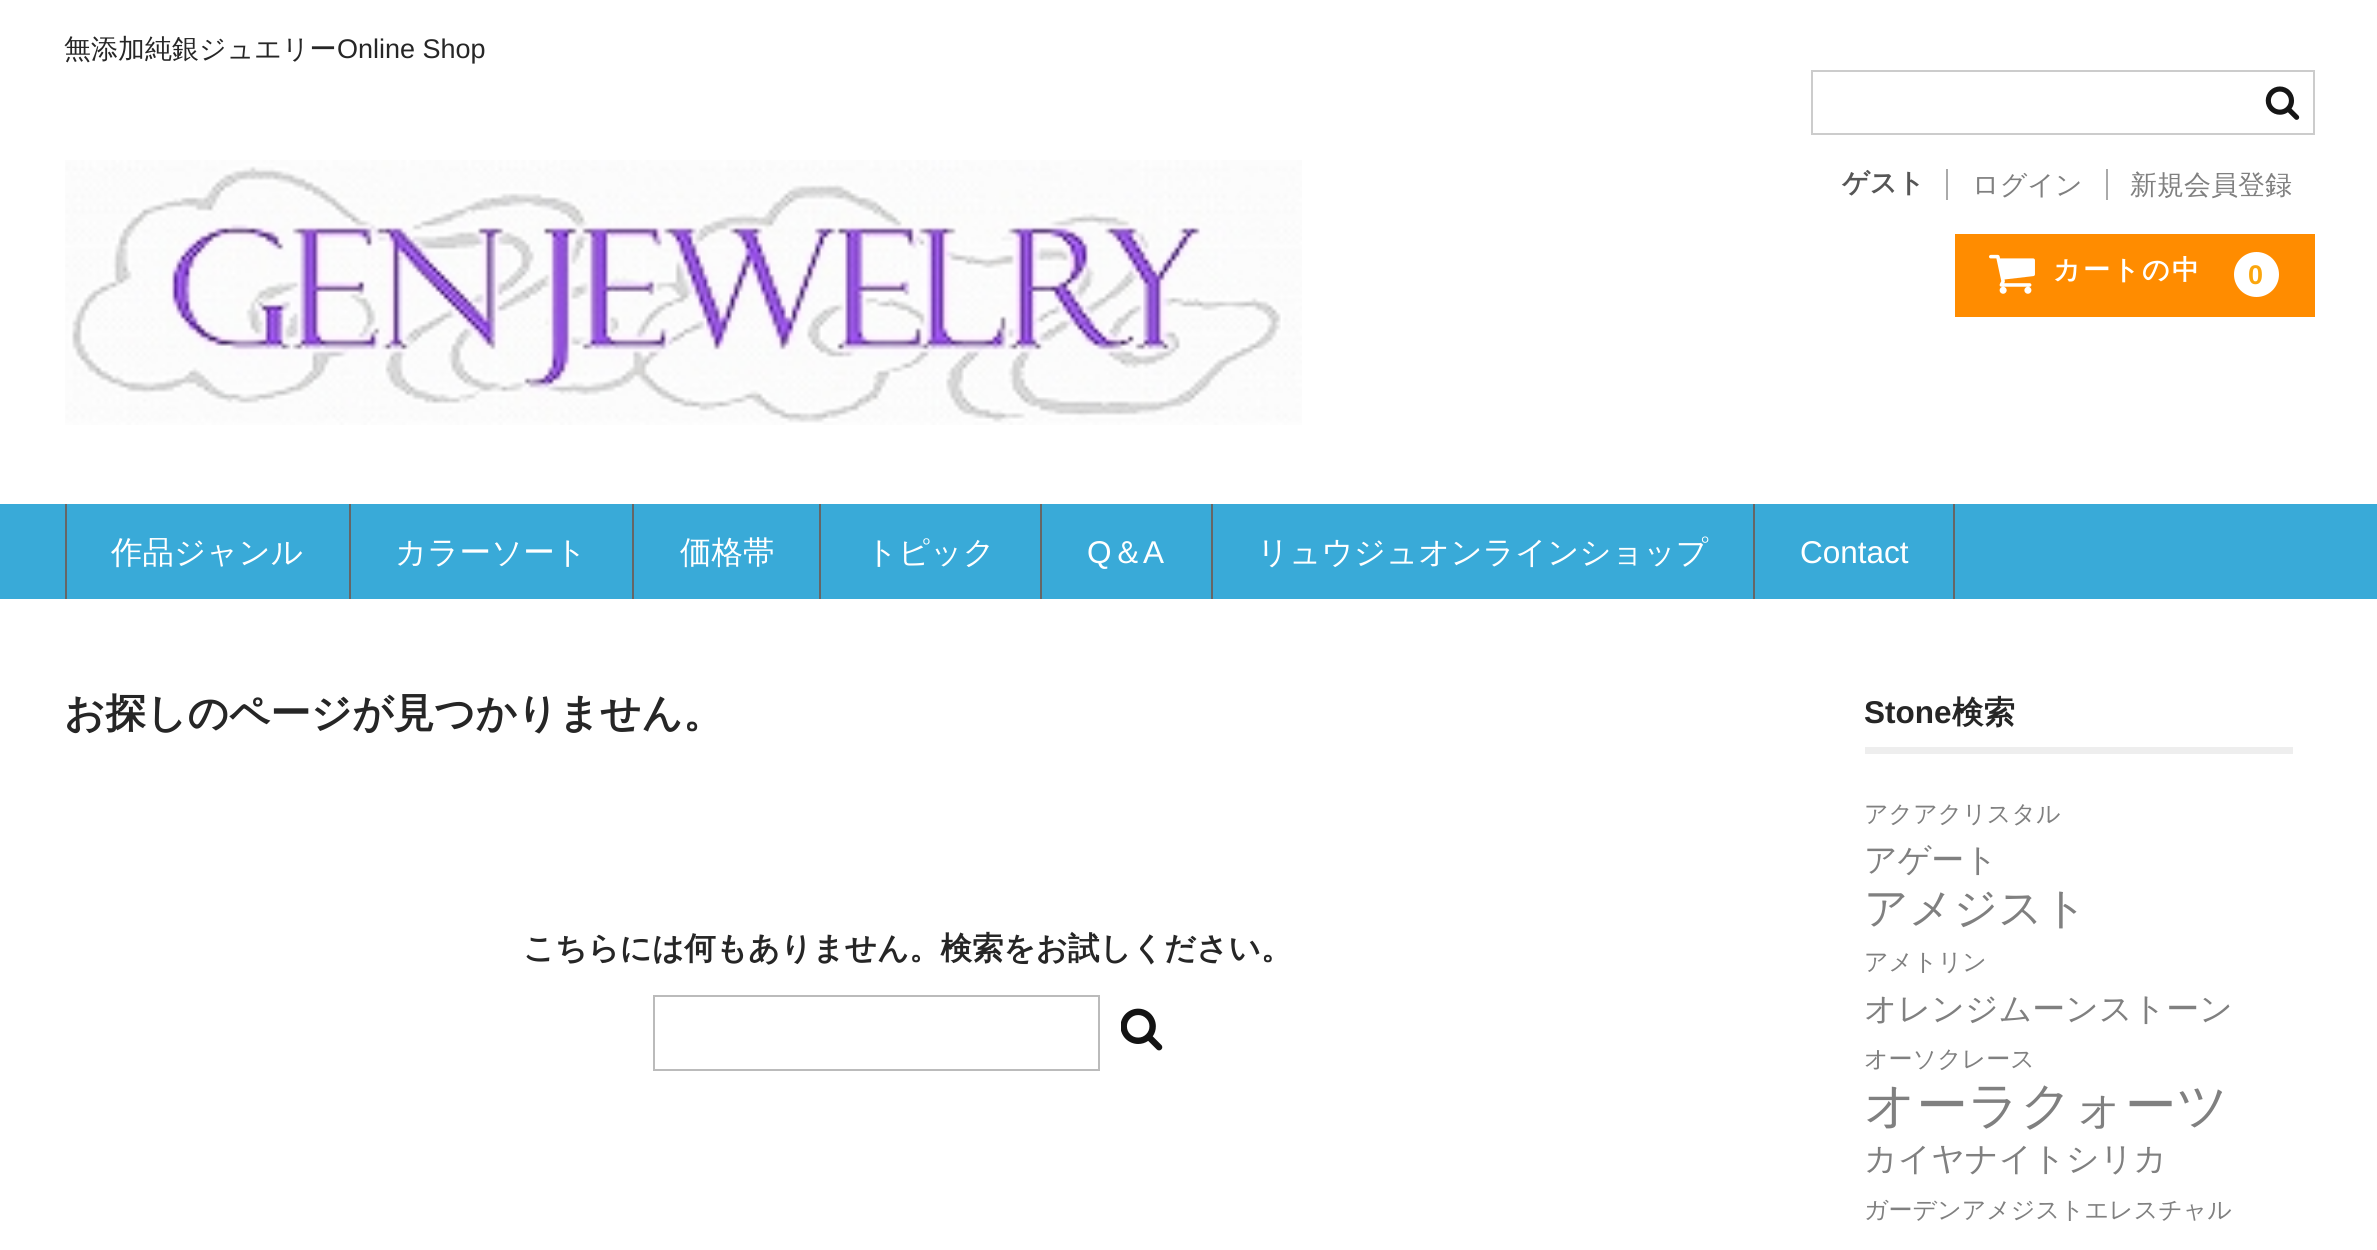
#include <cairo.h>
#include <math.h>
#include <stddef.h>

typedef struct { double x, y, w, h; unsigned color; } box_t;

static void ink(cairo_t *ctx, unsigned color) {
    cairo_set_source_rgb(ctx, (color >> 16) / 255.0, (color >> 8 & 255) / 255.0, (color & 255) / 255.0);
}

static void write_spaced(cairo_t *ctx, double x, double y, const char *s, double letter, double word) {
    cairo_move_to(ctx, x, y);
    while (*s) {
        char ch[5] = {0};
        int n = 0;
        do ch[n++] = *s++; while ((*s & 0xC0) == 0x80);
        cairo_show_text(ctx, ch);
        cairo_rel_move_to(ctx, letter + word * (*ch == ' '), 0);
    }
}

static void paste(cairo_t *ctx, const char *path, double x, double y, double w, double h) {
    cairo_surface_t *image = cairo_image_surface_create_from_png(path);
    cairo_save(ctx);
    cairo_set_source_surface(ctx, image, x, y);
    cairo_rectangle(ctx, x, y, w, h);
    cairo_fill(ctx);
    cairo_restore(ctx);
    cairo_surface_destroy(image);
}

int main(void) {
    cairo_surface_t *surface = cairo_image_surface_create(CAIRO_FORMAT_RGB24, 2377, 1250);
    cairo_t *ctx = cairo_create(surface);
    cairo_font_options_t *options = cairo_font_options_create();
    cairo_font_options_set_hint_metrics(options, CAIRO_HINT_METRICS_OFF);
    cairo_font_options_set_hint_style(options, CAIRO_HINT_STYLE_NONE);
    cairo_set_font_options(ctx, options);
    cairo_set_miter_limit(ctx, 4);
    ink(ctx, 0xFFFFFF);
    cairo_paint(ctx);
    cairo_select_font_face(ctx, "WenQuanYi Zen Hei Medium", CAIRO_FONT_SLANT_NORMAL, CAIRO_FONT_WEIGHT_NORMAL);
    cairo_set_font_size(ctx, 27);
    ink(ctx, 0x262626);
    cairo_move_to(ctx, 64, 58);
    cairo_show_text(ctx, "無添加純銀ジュエリー");
    cairo_select_font_face(ctx, "Liberation Sans", CAIRO_FONT_SLANT_NORMAL, CAIRO_FONT_WEIGHT_NORMAL);
    cairo_move_to(ctx, 337, 58);
    cairo_show_text(ctx, "Online Shop");
    paste(ctx, "media/1.png", 65, 160, 1237, 265);
    cairo_rectangle(ctx, 1812, 71, 502, 63);
    ink(ctx, 0xCCCCCC);
    cairo_stroke(ctx);
    paste(ctx, "media/2.png", 2265, 86, 35, 34);
    ink(ctx, 0xAAAAAA);
    cairo_rectangle(ctx, 1946, 169, 2, 31);
    cairo_fill(ctx);
    cairo_select_font_face(ctx, "WenQuanYi Zen Hei", CAIRO_FONT_SLANT_NORMAL, CAIRO_FONT_WEIGHT_BOLD);
    ink(ctx, 0x565656);
    cairo_move_to(ctx, 1842, 192);
    cairo_show_text(ctx, "ゲスト");
    ink(ctx, 0xAAAAAA);
    cairo_rectangle(ctx, 2106, 169, 2, 31);
    cairo_fill(ctx);
    cairo_select_font_face(ctx, "WenQuanYi Zen Hei Medium", CAIRO_FONT_SLANT_NORMAL, CAIRO_FONT_WEIGHT_NORMAL);
    ink(ctx, 0x808080);
    cairo_move_to(ctx, 1972, 194);
    cairo_show_text(ctx, "ログイン");
    cairo_move_to(ctx, 2130, 194);
    cairo_show_text(ctx, "新規会員登録");
    ink(ctx, 0xFF8C00);
    cairo_rectangle(ctx, 1955, 234, 360, 83);
    cairo_fill(ctx);
    paste(ctx, "media/3.png", 1989, 254, 46, 40);
    cairo_select_font_face(ctx, "WenQuanYi Zen Hei", CAIRO_FONT_SLANT_NORMAL, CAIRO_FONT_WEIGHT_BOLD);
    ink(ctx, 0xFFFFFF);
    write_spaced(ctx, 2053, 279, "カートの中", 2.25, 0);
    cairo_new_path(ctx);
    cairo_arc(ctx, 2256.5, 274.5, 22.5, 0, 2 * M_PI);
    cairo_fill(ctx);
    cairo_select_font_face(ctx, "Liberation Sans", CAIRO_FONT_SLANT_NORMAL, CAIRO_FONT_WEIGHT_BOLD);
    ink(ctx, 0xFBA60D);
    write_spaced(ctx, 2248, 284, "0", 2.25, 0);
    {
        static const box_t items[] = {
            {0, 504, 2377, 95, 0x39AAD8},
            {349, 504, 2, 95, 0x666666},
            {65, 504, 2, 95, 0x666666},
        };
        for (size_t i = 0; i < sizeof items / sizeof *items; i++) {
            ink(ctx, items[i].color);
            cairo_rectangle(ctx, items[i].x, items[i].y, items[i].w, items[i].h);
            cairo_fill(ctx);
        }
    }
    cairo_select_font_face(ctx, "WenQuanYi Zen Hei Medium", CAIRO_FONT_SLANT_NORMAL, CAIRO_FONT_WEIGHT_NORMAL);
    cairo_set_font_size(ctx, 31.5);
    ink(ctx, 0xFFFFFF);
    cairo_move_to(ctx, 111, 563);
    cairo_show_text(ctx, "作品ジャンル");
    ink(ctx, 0x666666);
    cairo_rectangle(ctx, 632, 504, 2, 95);
    cairo_fill(ctx);
    ink(ctx, 0xFFFFFF);
    cairo_move_to(ctx, 395, 563);
    cairo_show_text(ctx, "カラーソート");
    ink(ctx, 0x666666);
    cairo_rectangle(ctx, 819, 504, 2, 95);
    cairo_fill(ctx);
    ink(ctx, 0xFFFFFF);
    cairo_move_to(ctx, 680, 563);
    cairo_show_text(ctx, "価格帯");
    ink(ctx, 0x666666);
    cairo_rectangle(ctx, 1040, 504, 2, 95);
    cairo_fill(ctx);
    ink(ctx, 0xFFFFFF);
    cairo_move_to(ctx, 866, 563);
    cairo_show_text(ctx, "トピック");
    ink(ctx, 0x666666);
    cairo_rectangle(ctx, 1211, 504, 2, 95);
    cairo_fill(ctx);
    cairo_select_font_face(ctx, "Liberation Sans", CAIRO_FONT_SLANT_NORMAL, CAIRO_FONT_WEIGHT_NORMAL);
    ink(ctx, 0xFFFFFF);
    cairo_move_to(ctx, 1087, 563);
    cairo_show_text(ctx, "Q");
    cairo_select_font_face(ctx, "WenQuanYi Zen Hei Medium", CAIRO_FONT_SLANT_NORMAL, CAIRO_FONT_WEIGHT_NORMAL);
    cairo_move_to(ctx, 1112, 563);
    cairo_show_text(ctx, "＆");
    cairo_select_font_face(ctx, "Liberation Sans", CAIRO_FONT_SLANT_NORMAL, CAIRO_FONT_WEIGHT_NORMAL);
    cairo_move_to(ctx, 1143, 563);
    cairo_show_text(ctx, "A");
    ink(ctx, 0x666666);
    cairo_rectangle(ctx, 1753, 504, 2, 95);
    cairo_fill(ctx);
    cairo_select_font_face(ctx, "WenQuanYi Zen Hei Medium", CAIRO_FONT_SLANT_NORMAL, CAIRO_FONT_WEIGHT_NORMAL);
    ink(ctx, 0xFFFFFF);
    cairo_move_to(ctx, 1257, 563);
    cairo_show_text(ctx, "リュウジュオンラインショップ");
    ink(ctx, 0x666666);
    cairo_rectangle(ctx, 1953, 504, 2, 95);
    cairo_fill(ctx);
    cairo_select_font_face(ctx, "Liberation Sans", CAIRO_FONT_SLANT_NORMAL, CAIRO_FONT_WEIGHT_NORMAL);
    ink(ctx, 0xFFFFFF);
    cairo_move_to(ctx, 1800, 563);
    cairo_show_text(ctx, "Contact");
    cairo_select_font_face(ctx, "WenQuanYi Zen Hei", CAIRO_FONT_SLANT_NORMAL, CAIRO_FONT_WEIGHT_BOLD);
    cairo_set_font_size(ctx, 40.5);
    ink(ctx, 0x262626);
    cairo_move_to(ctx, 64, 727);
    cairo_show_text(ctx, "お探しのページが見つかりません。");
    cairo_set_font_size(ctx, 31.5);
    cairo_move_to(ctx, 523, 959);
    cairo_show_text(ctx, "こちらには何もありません。検索をお試しください。");
    cairo_rectangle(ctx, 654, 996, 445, 74);
    ink(ctx, 0xBBBBBB);
    cairo_stroke(ctx);
    paste(ctx, "media/4.png", 1121, 1008, 42, 43);
    ink(ctx, 0xEEEEEE);
    cairo_rectangle(ctx, 1865, 747, 428, 7);
    cairo_fill(ctx);
    cairo_select_font_face(ctx, "Liberation Sans", CAIRO_FONT_SLANT_NORMAL, CAIRO_FONT_WEIGHT_BOLD);
    ink(ctx, 0x262626);
    cairo_move_to(ctx, 1864, 723);
    cairo_show_text(ctx, "Stone");
    cairo_select_font_face(ctx, "WenQuanYi Zen Hei", CAIRO_FONT_SLANT_NORMAL, CAIRO_FONT_WEIGHT_BOLD);
    cairo_move_to(ctx, 1952, 723);
    cairo_show_text(ctx, "検索");
    cairo_select_font_face(ctx, "WenQuanYi Zen Hei Medium", CAIRO_FONT_SLANT_NORMAL, CAIRO_FONT_WEIGHT_NORMAL);
    cairo_set_font_size(ctx, 24);
    ink(ctx, 0x808080);
    cairo_move_to(ctx, 1864, 822);
    cairo_show_text(ctx, "アクアクリスタル");
    cairo_set_font_size(ctx, 32.9);
    cairo_move_to(ctx, 1864, 871);
    cairo_show_text(ctx, "アゲート");
    cairo_set_font_size(ctx, 43.75);
    cairo_move_to(ctx, 1864, 923);
    cairo_show_text(ctx, "アメジスト");
    cairo_set_font_size(ctx, 24);
    cairo_move_to(ctx, 1864, 970);
    cairo_show_text(ctx, "アメトリン");
    cairo_set_font_size(ctx, 32.9);
    cairo_move_to(ctx, 1864, 1020);
    cairo_show_text(ctx, "オレンジムーンストーン");
    cairo_set_font_size(ctx, 24);
    cairo_move_to(ctx, 1864, 1067);
    cairo_show_text(ctx, "オーソクレース");
    cairo_set_font_size(ctx, 51.25);
    cairo_move_to(ctx, 1864, 1123);
    cairo_show_text(ctx, "オーラクォーツ");
    cairo_set_font_size(ctx, 32.9);
    cairo_move_to(ctx, 1864, 1170);
    cairo_show_text(ctx, "カイヤナイトシリカ");
    cairo_set_font_size(ctx, 24);
    cairo_move_to(ctx, 1864, 1218);
    cairo_show_text(ctx, "ガーデンアメジストエレスチャル");
    cairo_surface_write_to_png(surface, "image.png");
    cairo_font_options_destroy(options);
    cairo_destroy(ctx);
    cairo_surface_destroy(surface);
    return 0;
}
